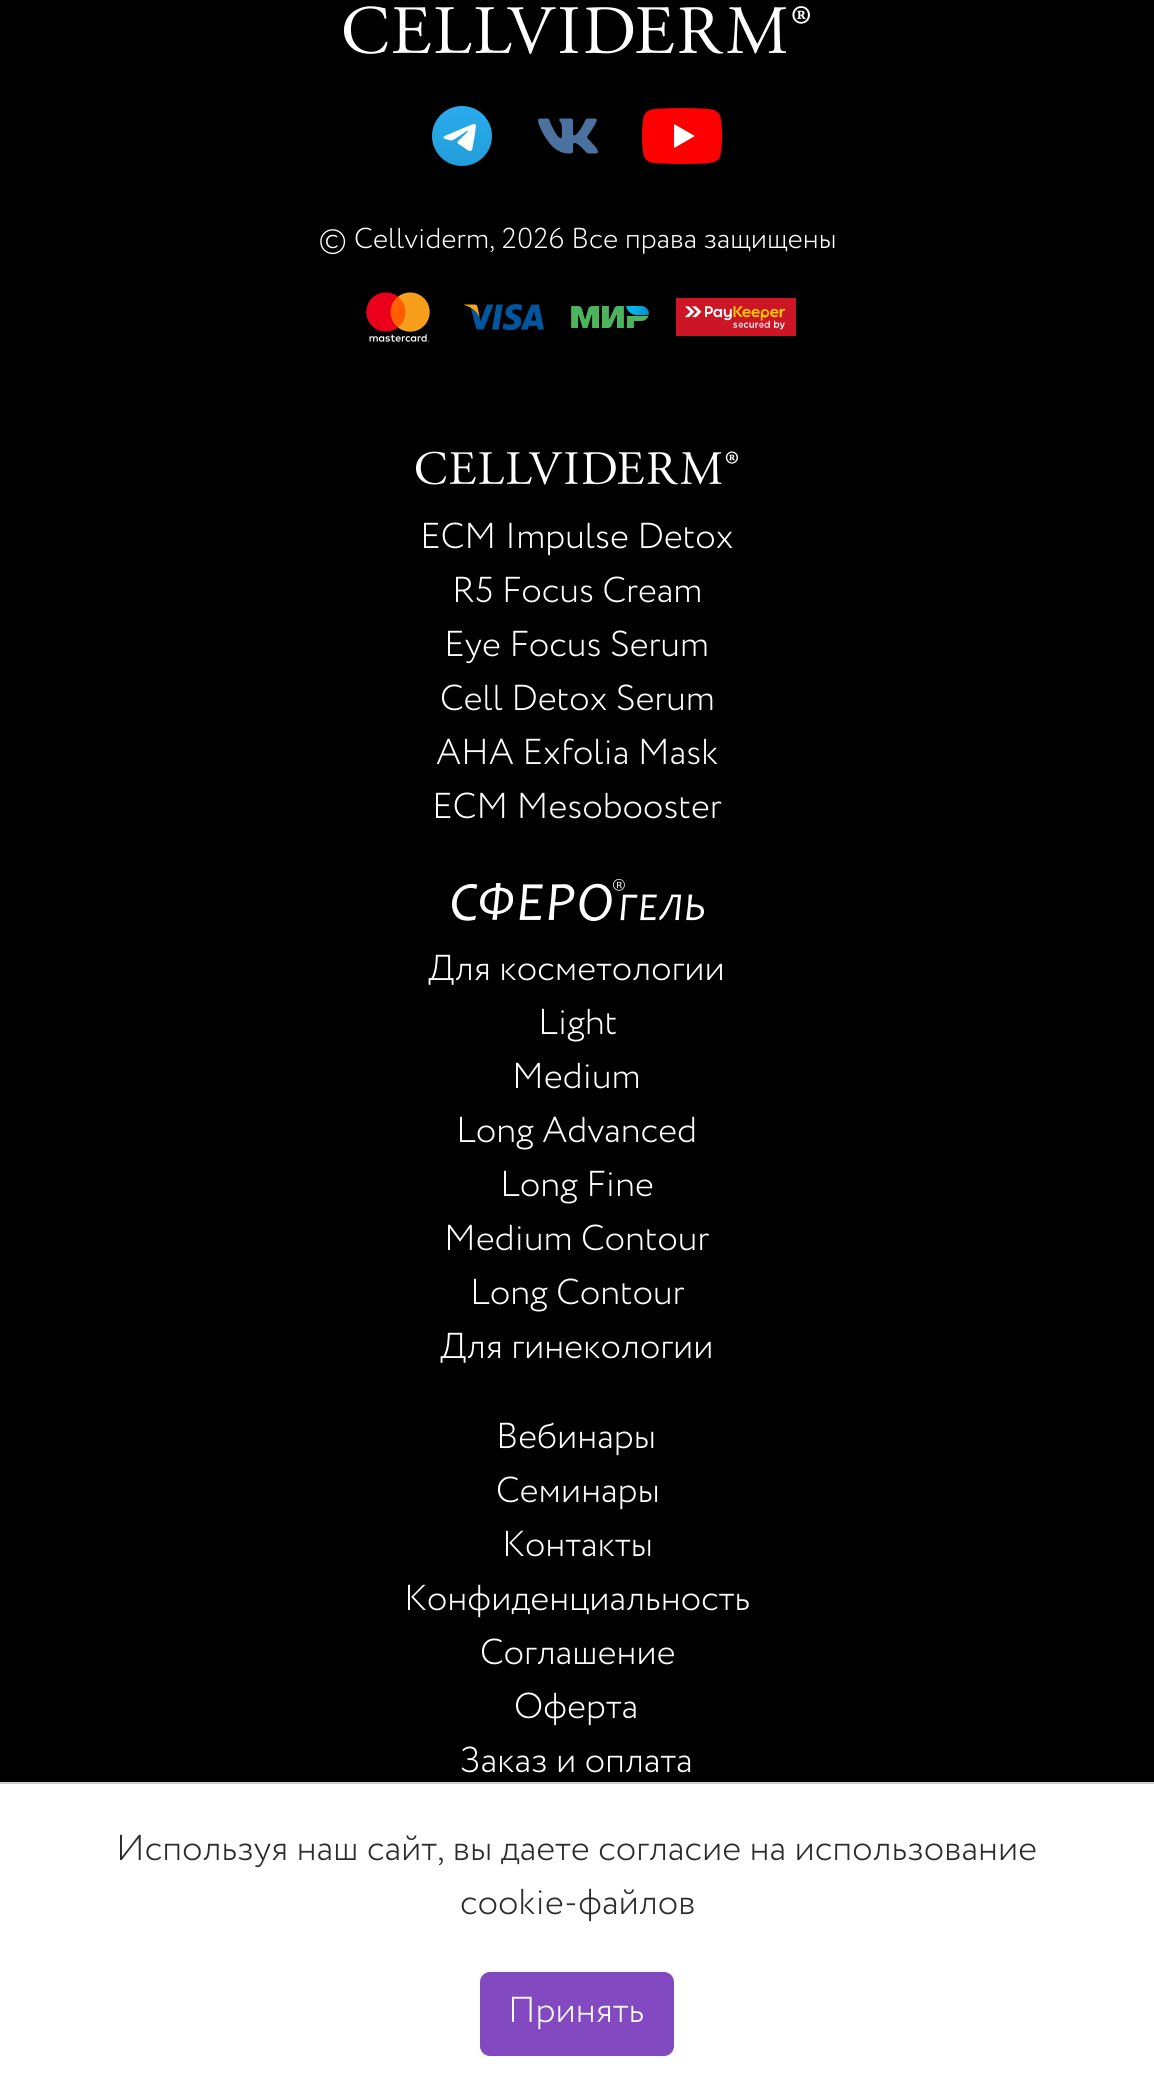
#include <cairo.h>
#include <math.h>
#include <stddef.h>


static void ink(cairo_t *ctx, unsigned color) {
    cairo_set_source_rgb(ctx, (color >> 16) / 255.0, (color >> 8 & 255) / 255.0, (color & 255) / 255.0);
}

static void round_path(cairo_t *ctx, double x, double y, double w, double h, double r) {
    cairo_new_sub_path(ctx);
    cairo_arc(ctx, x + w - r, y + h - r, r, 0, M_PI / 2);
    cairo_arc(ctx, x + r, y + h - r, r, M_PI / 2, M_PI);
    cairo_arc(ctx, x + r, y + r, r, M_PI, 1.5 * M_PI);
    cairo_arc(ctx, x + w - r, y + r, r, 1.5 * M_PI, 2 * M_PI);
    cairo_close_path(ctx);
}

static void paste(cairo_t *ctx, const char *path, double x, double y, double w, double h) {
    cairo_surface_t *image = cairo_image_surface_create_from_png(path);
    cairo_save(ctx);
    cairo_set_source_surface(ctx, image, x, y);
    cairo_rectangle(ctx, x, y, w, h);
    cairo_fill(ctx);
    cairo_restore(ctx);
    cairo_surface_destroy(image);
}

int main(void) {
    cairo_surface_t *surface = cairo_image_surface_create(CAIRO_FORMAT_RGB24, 1154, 2096);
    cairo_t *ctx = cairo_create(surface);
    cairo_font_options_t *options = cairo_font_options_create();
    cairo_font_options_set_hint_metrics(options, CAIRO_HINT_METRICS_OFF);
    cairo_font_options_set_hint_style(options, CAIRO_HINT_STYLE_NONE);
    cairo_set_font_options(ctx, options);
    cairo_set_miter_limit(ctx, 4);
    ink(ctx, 0x000000);
    cairo_paint(ctx);
    paste(ctx, "media/1.png", 344, 6, 466, 48);
    paste(ctx, "media/2.png", 432, 106, 60, 60);
    paste(ctx, "media/3.png", 538, 118, 60, 36);
    paste(ctx, "media/4.png", 642, 108, 80, 57);
    paste(ctx, "media/5.png", 320, 227, 515, 28);
    paste(ctx, "media/6.png", 366, 292, 64, 50);
    paste(ctx, "media/7.png", 464, 304, 80, 26);
    paste(ctx, "media/8.png", 571, 306, 78, 22);
    paste(ctx, "media/9.png", 676, 298, 120, 38);
    paste(ctx, "media/10.png", 416, 451, 322, 34);
    paste(ctx, "media/11.png", 424, 522, 309, 34);
    paste(ctx, "media/12.png", 456, 576, 244, 27);
    paste(ctx, "media/13.png", 448, 630, 259, 34);
    paste(ctx, "media/14.png", 441, 684, 272, 27);
    paste(ctx, "media/15.png", 436, 738, 282, 27);
    paste(ctx, "media/16.png", 436, 792, 286, 27);
    paste(ctx, "media/17.png", 452, 879, 252, 43);
    paste(ctx, "media/18.png", 428, 954, 294, 31);
    paste(ctx, "media/19.png", 542, 1008, 74, 34);
    paste(ctx, "media/20.png", 516, 1062, 123, 27);
    paste(ctx, "media/21.png", 460, 1116, 235, 34);
    paste(ctx, "media/22.png", 504, 1170, 149, 34);
    paste(ctx, "media/23.png", 448, 1224, 261, 27);
    paste(ctx, "media/24.png", 474, 1278, 211, 34);
    paste(ctx, "media/25.png", 440, 1332, 271, 31);
    paste(ctx, "media/26.png", 500, 1422, 154, 34);
    paste(ctx, "media/27.png", 497, 1476, 161, 34);
    paste(ctx, "media/28.png", 506, 1530, 145, 27);
    paste(ctx, "media/29.png", 408, 1584, 341, 34);
    paste(ctx, "media/30.png", 481, 1638, 193, 27);
    paste(ctx, "media/31.png", 515, 1692, 121, 34);
    paste(ctx, "media/32.png", 461, 1746, 230, 27);
    ink(ctx, 0xFFFFFF);
    cairo_rectangle(ctx, 0, 1784, 1154, 312);
    cairo_fill(ctx);
    ink(ctx, 0xCCCCCC);
    cairo_rectangle(ctx, 0, 1782, 1154, 2);
    cairo_fill(ctx);
    paste(ctx, "media/33.png", 120, 1834, 916, 34);
    paste(ctx, "media/34.png", 461, 1888, 233, 34);
    ink(ctx, 0x8349C1);
    round_path(ctx, 481, 1973, 192, 82, 9);
    cairo_fill_preserve(ctx);
    cairo_stroke(ctx);
    paste(ctx, "media/35.png", 512, 1996, 131, 34);
    cairo_surface_write_to_png(surface, "image.png");
    cairo_font_options_destroy(options);
    cairo_destroy(ctx);
    cairo_surface_destroy(surface);
    return 0;
}
